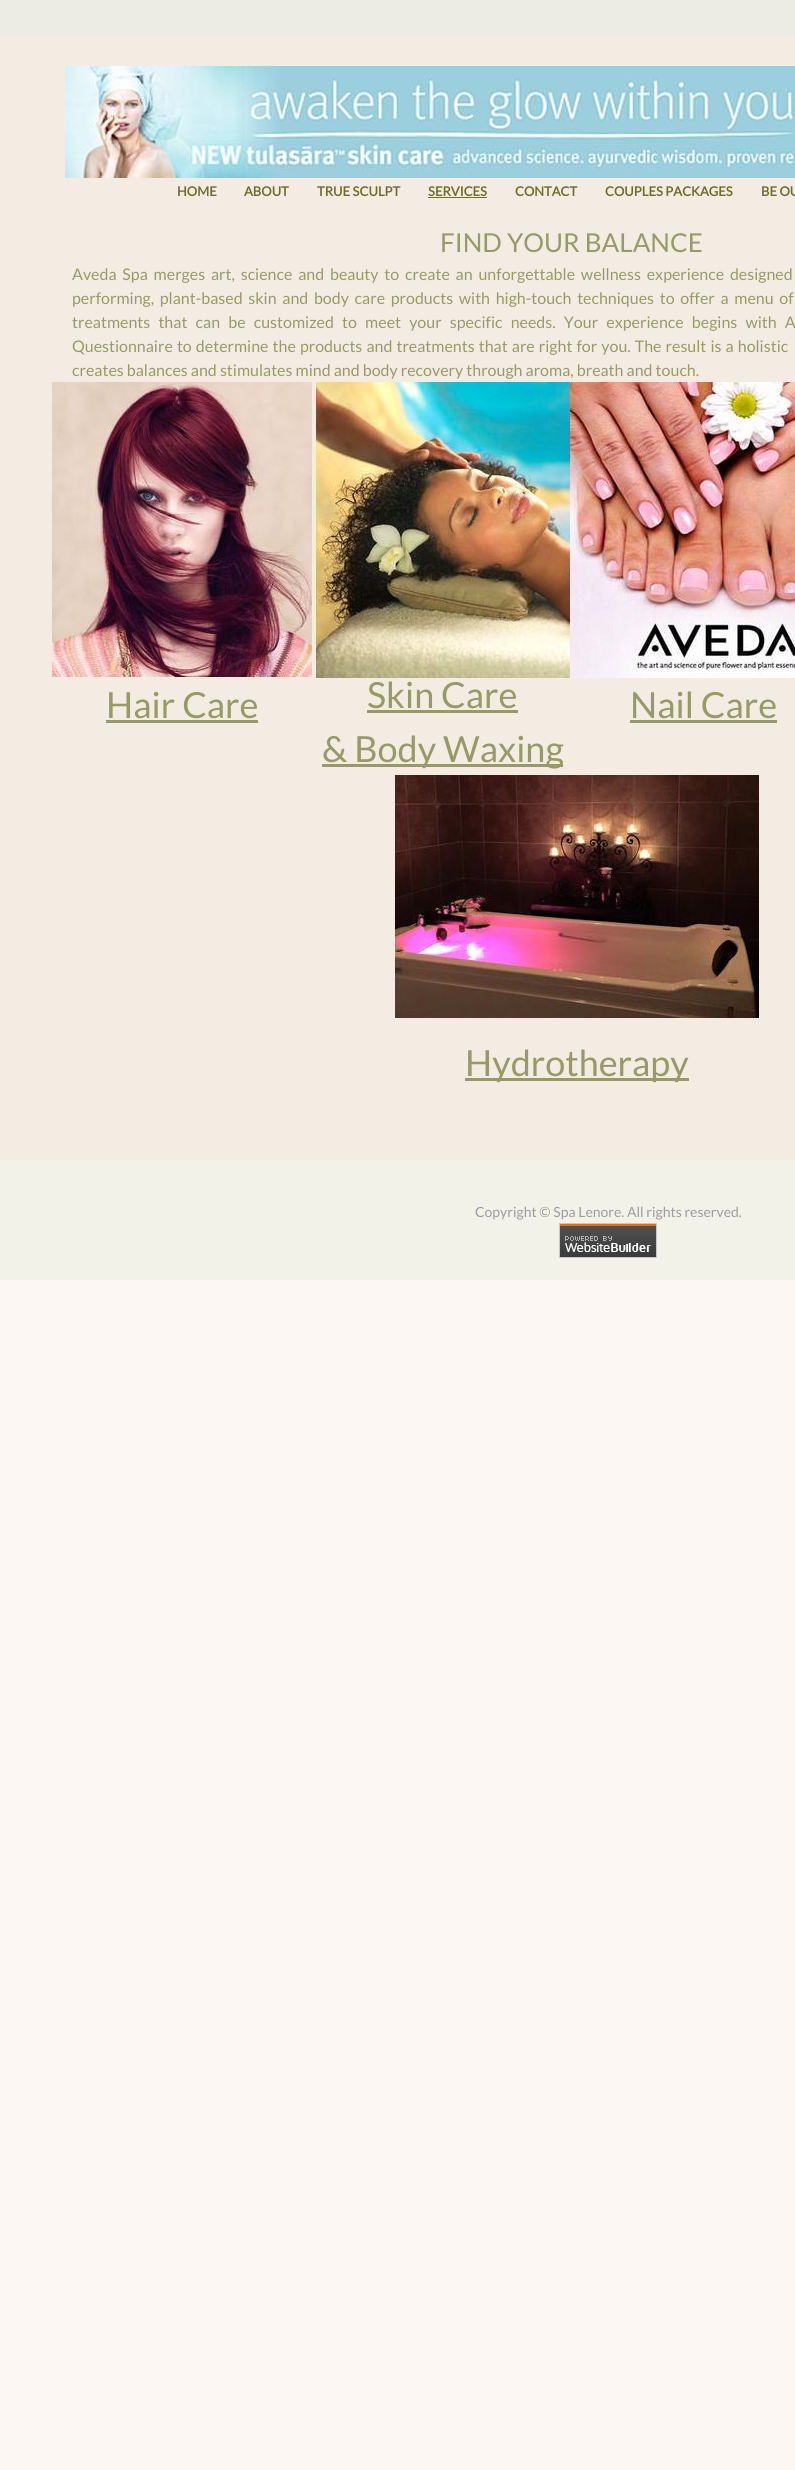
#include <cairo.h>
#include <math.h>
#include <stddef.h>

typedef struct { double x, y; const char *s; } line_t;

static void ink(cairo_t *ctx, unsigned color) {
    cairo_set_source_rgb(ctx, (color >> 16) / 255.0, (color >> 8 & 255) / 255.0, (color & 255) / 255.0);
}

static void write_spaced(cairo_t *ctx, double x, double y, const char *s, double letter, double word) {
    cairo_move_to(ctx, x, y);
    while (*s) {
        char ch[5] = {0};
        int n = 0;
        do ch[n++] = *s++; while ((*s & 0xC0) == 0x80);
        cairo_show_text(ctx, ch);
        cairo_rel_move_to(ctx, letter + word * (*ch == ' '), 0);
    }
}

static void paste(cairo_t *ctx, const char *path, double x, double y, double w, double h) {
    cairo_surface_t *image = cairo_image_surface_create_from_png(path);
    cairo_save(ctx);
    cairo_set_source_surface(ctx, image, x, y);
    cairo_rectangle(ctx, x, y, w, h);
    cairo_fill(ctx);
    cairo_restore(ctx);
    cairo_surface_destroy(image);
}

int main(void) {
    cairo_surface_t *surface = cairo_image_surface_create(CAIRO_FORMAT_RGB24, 795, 2470);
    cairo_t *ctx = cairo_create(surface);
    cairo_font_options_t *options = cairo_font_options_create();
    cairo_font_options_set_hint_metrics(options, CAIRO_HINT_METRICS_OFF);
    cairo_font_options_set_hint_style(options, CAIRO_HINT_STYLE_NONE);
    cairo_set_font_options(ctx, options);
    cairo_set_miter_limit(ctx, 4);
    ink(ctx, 0xFCF7F2);
    cairo_paint(ctx);
    ink(ctx, 0xF4EBE3);
    cairo_rectangle(ctx, 0, 39, 795, 1121);
    cairo_fill(ctx);
    ink(ctx, 0xEDECE4);
    cairo_rectangle(ctx, 0, 0, 795, 39);
    cairo_fill(ctx);
    paste(ctx, "media/1.png", 65, 66, 730, 112);
    cairo_select_font_face(ctx, "Lato", CAIRO_FONT_SLANT_NORMAL, CAIRO_FONT_WEIGHT_BOLD);
    cairo_set_font_size(ctx, 13);
    ink(ctx, 0x6D6D27);
    {
        static const line_t items[] = {
            {177, 196, "HOME"},
            {244, 196, "ABOUT"},
            {317, 196, "TRUE SCULPT"},
            {428, 196, "SERVICES"},
        };
        for (size_t i = 0; i < sizeof items / sizeof *items; i++) {
            cairo_move_to(ctx, items[i].x, items[i].y);
            cairo_show_text(ctx, items[i].s);
        }
    }
    cairo_rectangle(ctx, 428, 197, 59, 1);
    cairo_fill(ctx);
    {
        static const line_t items[] = {
            {515, 196, "CONTACT"},
            {605, 196, "COUPLES PACKAGES"},
            {761, 196, "BE OU"},
        };
        for (size_t i = 0; i < sizeof items / sizeof *items; i++) {
            cairo_move_to(ctx, items[i].x, items[i].y);
            cairo_show_text(ctx, items[i].s);
        }
    }
    cairo_select_font_face(ctx, "Lato", CAIRO_FONT_SLANT_NORMAL, CAIRO_FONT_WEIGHT_NORMAL);
    cairo_set_font_size(ctx, 26);
    ink(ctx, 0x999966);
    cairo_move_to(ctx, 440, 252);
    cairo_show_text(ctx, "FIND YOUR BALANCE");
    cairo_set_font_size(ctx, 16);
    write_spaced(ctx, 72, 280, "Aveda Spa merges art, science and beauty to create an unforgettable wellness experience designed", 0, 2.75);
    write_spaced(ctx, 72, 304, "performing, plant-based skin and body care products with high-touch techniques to offer a menu of", 0, 2.6);
    write_spaced(ctx, 72, 328, "treatments that can be customized to meet your specific needs. Your experience begins with A", 0, 5.1);
    write_spaced(ctx, 72, 352, "Questionnaire to determine the products and treatments that are right for you. The result is a holistic", 0, 1);
    cairo_move_to(ctx, 72, 376);
    cairo_show_text(ctx, "creates balances and stimulates mind and body recovery through aroma, breath and touch.");
    paste(ctx, "media/2.png", 52, 382, 260, 295);
    paste(ctx, "media/3.png", 316, 382, 254, 296);
    paste(ctx, "media/4.png", 570, 382, 225, 296);
    cairo_set_font_size(ctx, 36);
    cairo_move_to(ctx, 106, 718);
    cairo_show_text(ctx, "Hair Care");
    cairo_rectangle(ctx, 106, 720, 152, 3);
    cairo_fill(ctx);
    cairo_move_to(ctx, 367, 708);
    cairo_show_text(ctx, "Skin Care");
    cairo_rectangle(ctx, 367, 710, 151, 3);
    cairo_fill(ctx);
    cairo_rectangle(ctx, 322, 764, 241, 3);
    cairo_fill(ctx);
    cairo_move_to(ctx, 322, 762);
    cairo_show_text(ctx, "& Body Waxing");
    cairo_move_to(ctx, 630, 718);
    cairo_show_text(ctx, "Nail Care");
    cairo_rectangle(ctx, 630, 720, 147, 3);
    cairo_fill(ctx);
    paste(ctx, "media/5.png", 395, 775, 364, 243);
    cairo_rectangle(ctx, 465, 1078, 224, 3);
    cairo_fill(ctx);
    cairo_move_to(ctx, 465, 1076);
    cairo_show_text(ctx, "Hydrotherapy");
    ink(ctx, 0xF3F2E8);
    cairo_rectangle(ctx, 0, 1160, 795, 120);
    cairo_fill(ctx);
    cairo_set_font_size(ctx, 14);
    ink(ctx, 0x9C9C9C);
    cairo_move_to(ctx, 475, 1217);
    cairo_show_text(ctx, "Copyright © Spa Lenore. All rights reserved.");
    paste(ctx, "media/6.png", 559, 1223, 98, 35);
    cairo_surface_write_to_png(surface, "image.png");
    cairo_font_options_destroy(options);
    cairo_destroy(ctx);
    cairo_surface_destroy(surface);
    return 0;
}
